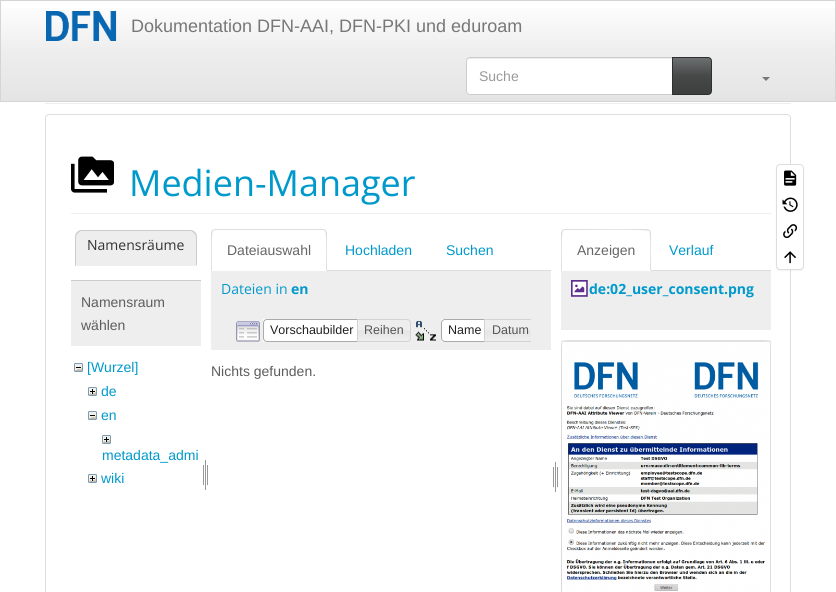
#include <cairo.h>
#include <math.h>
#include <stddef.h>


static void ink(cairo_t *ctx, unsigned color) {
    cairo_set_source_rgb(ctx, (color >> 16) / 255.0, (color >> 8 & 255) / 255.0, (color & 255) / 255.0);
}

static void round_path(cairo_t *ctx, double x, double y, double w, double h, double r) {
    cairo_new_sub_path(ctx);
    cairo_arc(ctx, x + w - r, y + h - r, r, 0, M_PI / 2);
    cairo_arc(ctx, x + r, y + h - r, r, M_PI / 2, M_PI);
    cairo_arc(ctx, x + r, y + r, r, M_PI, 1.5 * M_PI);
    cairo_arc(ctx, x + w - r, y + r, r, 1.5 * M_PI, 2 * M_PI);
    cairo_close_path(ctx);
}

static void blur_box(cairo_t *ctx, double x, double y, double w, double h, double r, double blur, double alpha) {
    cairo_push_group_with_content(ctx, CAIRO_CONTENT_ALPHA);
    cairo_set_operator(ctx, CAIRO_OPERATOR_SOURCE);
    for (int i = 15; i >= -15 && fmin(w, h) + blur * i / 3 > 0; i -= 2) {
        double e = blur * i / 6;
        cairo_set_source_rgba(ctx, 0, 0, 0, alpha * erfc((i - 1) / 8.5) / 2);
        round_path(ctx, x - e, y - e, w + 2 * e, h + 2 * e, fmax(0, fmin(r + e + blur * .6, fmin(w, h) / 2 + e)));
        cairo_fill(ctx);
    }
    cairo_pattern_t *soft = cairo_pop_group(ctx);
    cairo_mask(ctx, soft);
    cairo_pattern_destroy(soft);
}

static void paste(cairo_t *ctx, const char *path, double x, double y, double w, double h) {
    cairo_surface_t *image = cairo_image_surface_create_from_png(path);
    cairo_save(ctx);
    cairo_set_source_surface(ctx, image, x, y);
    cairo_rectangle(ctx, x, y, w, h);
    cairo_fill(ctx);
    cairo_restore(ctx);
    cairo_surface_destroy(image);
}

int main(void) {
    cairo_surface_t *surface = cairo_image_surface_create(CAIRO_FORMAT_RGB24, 836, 592);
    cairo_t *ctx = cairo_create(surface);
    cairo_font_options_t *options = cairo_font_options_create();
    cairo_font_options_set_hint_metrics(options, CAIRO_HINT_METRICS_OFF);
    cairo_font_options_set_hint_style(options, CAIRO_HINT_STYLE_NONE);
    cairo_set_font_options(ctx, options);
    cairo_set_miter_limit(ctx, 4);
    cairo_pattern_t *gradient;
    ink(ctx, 0xFFFFFF);
    cairo_paint(ctx);
    gradient = cairo_pattern_create_linear(418, 1, 418, 101);
    cairo_pattern_add_color_stop_rgba(gradient, 0, 1, 1, 1, 1);
    cairo_pattern_add_color_stop_rgba(gradient, 0.5, 0.933, 0.933, 0.933, 1);
    cairo_pattern_add_color_stop_rgba(gradient, 1, 0.894, 0.894, 0.894, 1);
    cairo_set_source(ctx, gradient);
    cairo_pattern_destroy(gradient);
    cairo_rectangle(ctx, 1, 8, 834, 93);
    cairo_fill(ctx);
    cairo_rectangle(ctx, 0.5, 0.5, 835, 101);
    ink(ctx, 0xD5D5D5);
    cairo_set_line_width(ctx, 1);
    cairo_stroke(ctx);
    paste(ctx, "media/1.png", 46, 11, 71, 30);
    cairo_select_font_face(ctx, "Liberation Sans", CAIRO_FONT_SLANT_NORMAL, CAIRO_FONT_WEIGHT_NORMAL);
    cairo_set_font_size(ctx, 18);
    ink(ctx, 0x777777);
    cairo_move_to(ctx, 131, 32);
    cairo_show_text(ctx, "Dokumentation DFN-AAI, DFN-PKI und eduroam");
    ink(ctx, 0xFFFFFF);
    cairo_new_path(ctx);
    cairo_move_to(ctx, 470, 57);
    cairo_line_to(ctx, 673, 57);
    cairo_line_to(ctx, 673, 95);
    cairo_line_to(ctx, 470, 95);
    cairo_curve_to(ctx, 468, 95, 466, 93, 466, 91);
    cairo_line_to(ctx, 466, 61);
    cairo_curve_to(ctx, 466, 59, 468, 57, 470, 57);
    cairo_close_path(ctx);
    cairo_fill(ctx);
    ink(ctx, 0xECECEC);
    cairo_new_path(ctx);
    cairo_move_to(ctx, 470, 59);
    cairo_line_to(ctx, 672, 59);
    cairo_line_to(ctx, 672, 58);
    cairo_line_to(ctx, 469, 58);
    cairo_curve_to(ctx, 467, 59, 467, 60, 467, 62);
    cairo_curve_to(ctx, 467, 60, 468, 59, 470, 59);
    cairo_close_path(ctx);
    cairo_fill(ctx);
    cairo_new_path(ctx);
    cairo_move_to(ctx, 470, 57.5);
    cairo_line_to(ctx, 672.5, 57.5);
    cairo_line_to(ctx, 672.5, 94.5);
    cairo_line_to(ctx, 470, 94.5);
    cairo_curve_to(ctx, 468, 94.5, 466.5, 93, 466.5, 91);
    cairo_line_to(ctx, 466.5, 61);
    cairo_curve_to(ctx, 466.5, 59, 468, 57.5, 470, 57.5);
    cairo_close_path(ctx);
    ink(ctx, 0xCCCCCC);
    cairo_stroke(ctx);
    cairo_set_font_size(ctx, 14);
    ink(ctx, 0x999999);
    cairo_move_to(ctx, 479, 81);
    cairo_show_text(ctx, "Suche");
    gradient = cairo_pattern_create_linear(692, 58, 692, 94);
    cairo_pattern_add_color_stop_rgba(gradient, 0, 0.427, 0.439, 0.439, 1);
    cairo_pattern_add_color_stop_rgba(gradient, 0.5, 0.278, 0.286, 0.286, 1);
    cairo_pattern_add_color_stop_rgba(gradient, 1, 0.239, 0.247, 0.247, 1);
    cairo_set_source(ctx, gradient);
    cairo_pattern_destroy(gradient);
    cairo_rectangle(ctx, 673, 58, 38, 36);
    cairo_fill(ctx);
    cairo_new_path(ctx);
    cairo_move_to(ctx, 672.5, 57.5);
    cairo_line_to(ctx, 708, 57.5);
    cairo_curve_to(ctx, 710, 57.5, 711.5, 59, 711.5, 61);
    cairo_line_to(ctx, 711.5, 91);
    cairo_curve_to(ctx, 711.5, 93, 710, 94.5, 708, 94.5);
    cairo_line_to(ctx, 672.5, 94.5);
    cairo_close_path(ctx);
    ink(ctx, 0x2E2F2F);
    cairo_stroke(ctx);
    ink(ctx, 0x777777);
    cairo_new_path(ctx);
    cairo_move_to(ctx, 762, 77);
    cairo_line_to(ctx, 770, 77);
    cairo_line_to(ctx, 766, 81);
    cairo_close_path(ctx);
    cairo_fill(ctx);
    ink(ctx, 0xEEEEEE);
    cairo_rectangle(ctx, 45, 103, 746, 1);
    cairo_fill(ctx);
    round_path(ctx, 45.5, 114.5, 745, 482, 3.5);
    ink(ctx, 0xDDDDDD);
    cairo_stroke(ctx);
    ink(ctx, 0xEEEEEE);
    cairo_rectangle(ctx, 71, 213, 700, 1);
    cairo_fill(ctx);
    paste(ctx, "media/2.png", 71, 156, 43, 37);
    cairo_select_font_face(ctx, "Open Sans", CAIRO_FONT_SLANT_NORMAL, CAIRO_FONT_WEIGHT_NORMAL);
    cairo_set_font_size(ctx, 36);
    ink(ctx, 0x0099CC);
    cairo_move_to(ctx, 129, 196);
    cairo_show_text(ctx, "Medien-Manager");
    ink(ctx, 0xEEEEEE);
    cairo_new_path(ctx);
    cairo_move_to(ctx, 82, 230);
    cairo_line_to(ctx, 190, 230);
    cairo_curve_to(ctx, 194, 230, 197, 233, 197, 237);
    cairo_line_to(ctx, 197, 266);
    cairo_line_to(ctx, 75, 266);
    cairo_line_to(ctx, 75, 237);
    cairo_curve_to(ctx, 75, 233, 78, 230, 82, 230);
    cairo_close_path(ctx);
    cairo_fill(ctx);
    ink(ctx, 0xCCCCCC);
    cairo_new_path(ctx);
    cairo_move_to(ctx, 82, 230);
    cairo_curve_to(ctx, 80, 230, 78, 231, 77, 232);
    cairo_line_to(ctx, 78, 233);
    cairo_line_to(ctx, 81, 231);
    cairo_line_to(ctx, 191, 231);
    cairo_line_to(ctx, 194, 233);
    cairo_line_to(ctx, 195, 232);
    cairo_curve_to(ctx, 194, 231, 192, 230, 190, 230);
    cairo_close_path(ctx);
    cairo_fill(ctx);
    cairo_new_path(ctx);
    cairo_move_to(ctx, 197, 266);
    cairo_line_to(ctx, 197, 237);
    cairo_curve_to(ctx, 197, 235, 196, 233, 195, 232);
    cairo_line_to(ctx, 194, 233);
    cairo_curve_to(ctx, 195, 234, 196, 235.5, 196, 237);
    cairo_line_to(ctx, 196, 265);
    cairo_close_path(ctx);
    cairo_fill(ctx);
    ink(ctx, 0xEEEEEE);
    cairo_new_path(ctx);
    cairo_move_to(ctx, 197, 266);
    cairo_line_to(ctx, 196, 265);
    cairo_line_to(ctx, 76, 265);
    cairo_line_to(ctx, 75, 266);
    cairo_close_path(ctx);
    cairo_fill(ctx);
    ink(ctx, 0xCCCCCC);
    cairo_new_path(ctx);
    cairo_move_to(ctx, 75, 266);
    cairo_line_to(ctx, 76, 265);
    cairo_line_to(ctx, 76, 237);
    cairo_curve_to(ctx, 76, 235.5, 77, 234, 78, 233);
    cairo_line_to(ctx, 77, 232);
    cairo_curve_to(ctx, 76, 233, 75, 235, 75, 237);
    cairo_close_path(ctx);
    cairo_fill(ctx);
    cairo_set_font_size(ctx, 14);
    ink(ctx, 0x333333);
    cairo_move_to(ctx, 87, 250);
    cairo_show_text(ctx, "Namensräume");
    ink(ctx, 0xEEEEEE);
    cairo_rectangle(ctx, 71, 281, 130, 65);
    cairo_fill(ctx);
    ink(ctx, 0xCCCCCC);
    cairo_rectangle(ctx, 71, 280, 130, 1);
    cairo_fill(ctx);
    cairo_select_font_face(ctx, "Liberation Sans", CAIRO_FONT_SLANT_NORMAL, CAIRO_FONT_WEIGHT_NORMAL);
    ink(ctx, 0x5D5D5D);
    cairo_move_to(ctx, 81, 307);
    cairo_show_text(ctx, "Namensraum");
    cairo_move_to(ctx, 81, 330);
    cairo_show_text(ctx, "wählen");
    paste(ctx, "media/3.png", 74, 363, 9, 9);
    ink(ctx, 0x0099CC);
    cairo_move_to(ctx, 87, 372);
    cairo_show_text(ctx, "[Wurzel]");
    paste(ctx, "media/4.png", 88, 387, 9, 9);
    cairo_move_to(ctx, 101, 396);
    cairo_show_text(ctx, "de");
    paste(ctx, "media/3.png", 88, 411, 9, 9);
    cairo_move_to(ctx, 101, 420);
    cairo_show_text(ctx, "en");
    paste(ctx, "media/4.png", 102, 435, 9, 9);
    cairo_move_to(ctx, 102, 460);
    cairo_show_text(ctx, "metadata_admi");
    paste(ctx, "media/4.png", 88, 474, 9, 9);
    cairo_move_to(ctx, 101, 483);
    cairo_show_text(ctx, "wiki");
    paste(ctx, "media/5.png", 203, 459, 5, 31);
    ink(ctx, 0xDDDDDD);
    cairo_rectangle(ctx, 327, 270, 224, 1);
    cairo_fill(ctx);
    cairo_new_path(ctx);
    cairo_move_to(ctx, 215, 229);
    cairo_line_to(ctx, 212, 230);
    cairo_line_to(ctx, 213, 231);
    cairo_line_to(ctx, 215, 230);
    cairo_line_to(ctx, 323, 230);
    cairo_line_to(ctx, 325, 231);
    cairo_line_to(ctx, 326, 230);
    cairo_line_to(ctx, 323, 229);
    cairo_close_path(ctx);
    cairo_fill(ctx);
    cairo_new_path(ctx);
    cairo_move_to(ctx, 327, 271);
    cairo_line_to(ctx, 327, 233);
    cairo_curve_to(ctx, 327, 232, 326, 231, 326, 230);
    cairo_line_to(ctx, 325, 231);
    cairo_curve_to(ctx, 327, 233, 326, 265, 326, 270);
    cairo_close_path(ctx);
    cairo_fill(ctx);
    cairo_new_path(ctx);
    cairo_move_to(ctx, 211, 271);
    cairo_line_to(ctx, 212, 270);
    cairo_curve_to(ctx, 212, 265, 211, 233, 213, 231);
    cairo_line_to(ctx, 212, 230);
    cairo_line_to(ctx, 211, 233);
    cairo_close_path(ctx);
    cairo_fill(ctx);
    ink(ctx, 0x666666);
    cairo_move_to(ctx, 227, 255);
    cairo_show_text(ctx, "Dateiauswahl");
    ink(ctx, 0x0099CC);
    cairo_move_to(ctx, 345, 255);
    cairo_show_text(ctx, "Hochladen");
    cairo_move_to(ctx, 446, 255);
    cairo_show_text(ctx, "Suchen");
    ink(ctx, 0xEEEEEE);
    cairo_rectangle(ctx, 211, 271, 340, 79);
    cairo_fill(ctx);
    cairo_select_font_face(ctx, "Open Sans", CAIRO_FONT_SLANT_NORMAL, CAIRO_FONT_WEIGHT_NORMAL);
    ink(ctx, 0x0099CC);
    cairo_move_to(ctx, 221, 294);
    cairo_show_text(ctx, "Dateien in");
    cairo_select_font_face(ctx, "Open Sans", CAIRO_FONT_SLANT_NORMAL, CAIRO_FONT_WEIGHT_BOLD);
    cairo_move_to(ctx, 291, 294);
    cairo_show_text(ctx, "en");
    paste(ctx, "media/6.png", 236, 321, 24, 21);
    ink(ctx, 0xFFFFFF);
    cairo_rectangle(ctx, 263, 319, 94, 23);
    cairo_fill(ctx);
    cairo_new_path(ctx);
    cairo_move_to(ctx, 267, 319.5);
    cairo_line_to(ctx, 361.5, 319.5);
    cairo_line_to(ctx, 361.5, 341.5);
    cairo_line_to(ctx, 267, 341.5);
    cairo_curve_to(ctx, 265, 341.5, 263.5, 340, 263.5, 338);
    cairo_line_to(ctx, 263.5, 323);
    cairo_curve_to(ctx, 263.5, 321, 265, 319.5, 267, 319.5);
    cairo_close_path(ctx);
    ink(ctx, 0xAAAAAA);
    cairo_stroke(ctx);
    cairo_select_font_face(ctx, "Liberation Sans", CAIRO_FONT_SLANT_NORMAL, CAIRO_FONT_WEIGHT_NORMAL);
    cairo_set_font_size(ctx, 12.5);
    ink(ctx, 0x212121);
    cairo_move_to(ctx, 270, 334);
    cairo_show_text(ctx, "Vorschaubilder");
    paste(ctx, "media/7.png", 358, 319, 53, 23);
    cairo_new_path(ctx);
    cairo_move_to(ctx, 357.5, 319.5);
    cairo_line_to(ctx, 407, 319.5);
    cairo_curve_to(ctx, 409, 319.5, 410.5, 321, 410.5, 323);
    cairo_line_to(ctx, 410.5, 338);
    cairo_curve_to(ctx, 410.5, 340, 409, 341.5, 407, 341.5);
    cairo_line_to(ctx, 357.5, 341.5);
    cairo_close_path(ctx);
    ink(ctx, 0xD3D3D3);
    cairo_stroke(ctx);
    ink(ctx, 0x555555);
    cairo_move_to(ctx, 364, 334);
    cairo_show_text(ctx, "Reihen");
    paste(ctx, "media/8.png", 415, 321, 21, 20);
    ink(ctx, 0xFFFFFF);
    cairo_rectangle(ctx, 441, 319, 43, 23);
    cairo_fill(ctx);
    cairo_new_path(ctx);
    cairo_move_to(ctx, 445, 319.5);
    cairo_line_to(ctx, 488.5, 319.5);
    cairo_line_to(ctx, 488.5, 341.5);
    cairo_line_to(ctx, 445, 341.5);
    cairo_curve_to(ctx, 443, 341.5, 441.5, 340, 441.5, 338);
    cairo_line_to(ctx, 441.5, 323);
    cairo_curve_to(ctx, 441.5, 321, 443, 319.5, 445, 319.5);
    cairo_close_path(ctx);
    ink(ctx, 0xAAAAAA);
    cairo_stroke(ctx);
    ink(ctx, 0x212121);
    cairo_move_to(ctx, 448, 334);
    cairo_show_text(ctx, "Name");
    paste(ctx, "media/9.png", 485, 320, 46, 21);
    cairo_save(ctx);
    cairo_rectangle(ctx, 228, 319, 303, 23);
    cairo_clip(ctx);
    cairo_new_path(ctx);
    cairo_move_to(ctx, 484.5, 319.5);
    cairo_line_to(ctx, 532, 319.5);
    cairo_curve_to(ctx, 534, 319.5, 535.5, 321, 535.5, 323);
    cairo_line_to(ctx, 535.5, 338);
    cairo_curve_to(ctx, 535.5, 340, 534, 341.5, 532, 341.5);
    cairo_line_to(ctx, 484.5, 341.5);
    cairo_close_path(ctx);
    ink(ctx, 0xD3D3D3);
    cairo_stroke(ctx);
    cairo_restore(ctx);
    ink(ctx, 0x555555);
    cairo_move_to(ctx, 492, 334);
    cairo_show_text(ctx, "Datum");
    cairo_set_font_size(ctx, 14);
    ink(ctx, 0x5D5D5D);
    cairo_move_to(ctx, 211, 376);
    cairo_show_text(ctx, "Nichts gefunden.");
    paste(ctx, "media/5.png", 553, 461, 5, 31);
    ink(ctx, 0xDDDDDD);
    cairo_rectangle(ctx, 651, 270, 120, 1);
    cairo_fill(ctx);
    cairo_new_path(ctx);
    cairo_move_to(ctx, 565, 229);
    cairo_line_to(ctx, 562, 230);
    cairo_line_to(ctx, 563, 231);
    cairo_line_to(ctx, 565, 230);
    cairo_line_to(ctx, 579, 230);
    cairo_curve_to(ctx, 586, 230, 647, 229, 649, 231);
    cairo_line_to(ctx, 650, 230);
    cairo_line_to(ctx, 647, 229);
    cairo_close_path(ctx);
    cairo_fill(ctx);
    cairo_new_path(ctx);
    cairo_move_to(ctx, 651, 271);
    cairo_line_to(ctx, 651, 233);
    cairo_curve_to(ctx, 651, 232, 650, 231, 650, 230);
    cairo_line_to(ctx, 649, 231);
    cairo_curve_to(ctx, 651, 233, 650, 265, 650, 270);
    cairo_close_path(ctx);
    cairo_fill(ctx);
    cairo_new_path(ctx);
    cairo_move_to(ctx, 561, 271);
    cairo_line_to(ctx, 562, 270);
    cairo_curve_to(ctx, 562, 265, 561, 233, 563, 231);
    cairo_line_to(ctx, 562, 230);
    cairo_line_to(ctx, 561, 233);
    cairo_close_path(ctx);
    cairo_fill(ctx);
    ink(ctx, 0x666666);
    cairo_move_to(ctx, 577, 255);
    cairo_show_text(ctx, "Anzeigen");
    ink(ctx, 0x0099CC);
    cairo_move_to(ctx, 669, 255);
    cairo_show_text(ctx, "Verlauf");
    ink(ctx, 0xEEEEEE);
    cairo_rectangle(ctx, 561, 271, 210, 59);
    cairo_fill(ctx);
    paste(ctx, "media/10.png", 571, 280, 17, 17);
    cairo_select_font_face(ctx, "Open Sans", CAIRO_FONT_SLANT_NORMAL, CAIRO_FONT_WEIGHT_BOLD);
    ink(ctx, 0x0099CC);
    cairo_move_to(ctx, 589, 294);
    cairo_show_text(ctx, "de:02_user_consent.png");
    paste(ctx, "media/11.png", 561, 340, 210, 252);
    ink(ctx, 0x000000);
    blur_box(ctx, 776, 165, 28, 106, 4, 0.5, 0.05);
    ink(ctx, 0xFFFFFF);
    round_path(ctx, 776.5, 164.5, 27, 105, 3.5);
    cairo_fill_preserve(ctx);
    ink(ctx, 0xDDDDDD);
    cairo_stroke(ctx);
    paste(ctx, "media/12.png", 784, 170, 13, 16);
    paste(ctx, "media/13.png", 782, 197, 16, 15);
    paste(ctx, "media/14.png", 783, 224, 15, 15);
    paste(ctx, "media/15.png", 784, 251, 12, 13);
    cairo_surface_write_to_png(surface, "image.png");
    cairo_font_options_destroy(options);
    cairo_destroy(ctx);
    cairo_surface_destroy(surface);
    return 0;
}
